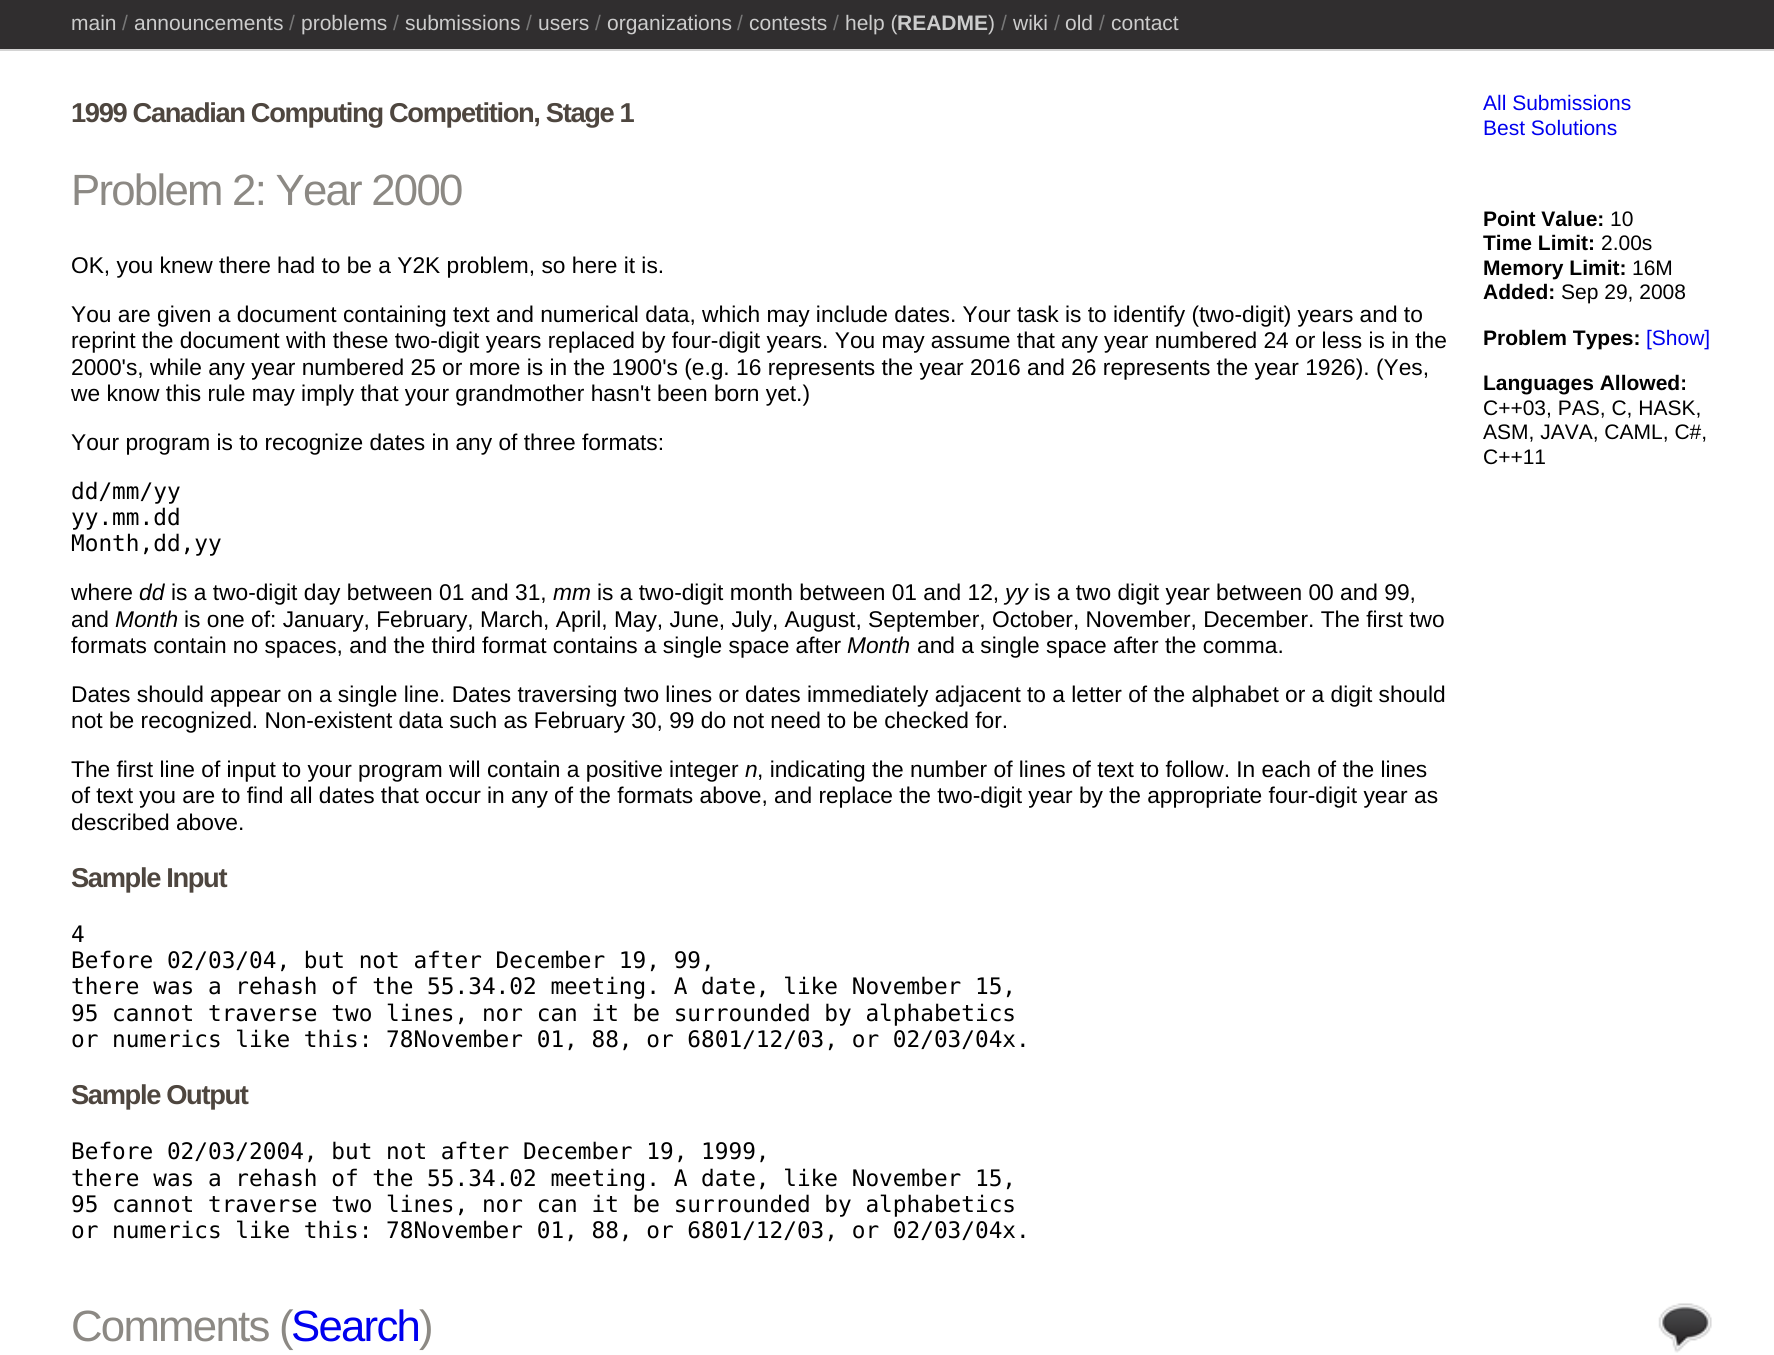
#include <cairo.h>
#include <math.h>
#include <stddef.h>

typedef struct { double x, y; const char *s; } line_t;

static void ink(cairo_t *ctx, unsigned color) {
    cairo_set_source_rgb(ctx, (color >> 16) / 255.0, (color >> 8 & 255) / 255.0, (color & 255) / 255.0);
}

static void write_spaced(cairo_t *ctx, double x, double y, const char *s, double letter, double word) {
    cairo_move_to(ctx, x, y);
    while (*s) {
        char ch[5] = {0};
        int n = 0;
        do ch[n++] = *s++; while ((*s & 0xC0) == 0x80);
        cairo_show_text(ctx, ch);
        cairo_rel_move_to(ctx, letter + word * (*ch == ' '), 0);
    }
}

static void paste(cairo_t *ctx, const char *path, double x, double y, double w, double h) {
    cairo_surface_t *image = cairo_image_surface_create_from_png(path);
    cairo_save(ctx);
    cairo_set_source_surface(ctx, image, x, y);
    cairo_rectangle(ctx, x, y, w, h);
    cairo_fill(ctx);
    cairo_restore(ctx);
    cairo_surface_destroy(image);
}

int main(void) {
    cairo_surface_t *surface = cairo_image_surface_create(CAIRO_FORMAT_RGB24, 1774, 1355);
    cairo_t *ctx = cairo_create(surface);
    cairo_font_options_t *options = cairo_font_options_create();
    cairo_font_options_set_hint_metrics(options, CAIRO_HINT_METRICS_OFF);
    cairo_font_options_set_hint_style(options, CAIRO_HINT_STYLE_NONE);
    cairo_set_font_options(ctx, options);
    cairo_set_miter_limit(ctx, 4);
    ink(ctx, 0xFFFFFF);
    cairo_paint(ctx);
    ink(ctx, 0x302E2F);
    cairo_rectangle(ctx, 0, 0, 1774, 49);
    cairo_fill(ctx);
    ink(ctx, 0xD4D4D4);
    cairo_rectangle(ctx, 0, 49, 1774, 2);
    cairo_fill(ctx);
    cairo_select_font_face(ctx, "Liberation Sans", CAIRO_FONT_SLANT_NORMAL, CAIRO_FONT_WEIGHT_NORMAL);
    cairo_set_font_size(ctx, 21);
    ink(ctx, 0xCCCCCC);
    cairo_move_to(ctx, 71, 30);
    cairo_show_text(ctx, "main");
    ink(ctx, 0x777777);
    cairo_move_to(ctx, 122, 30);
    cairo_show_text(ctx, "/");
    ink(ctx, 0xCCCCCC);
    cairo_move_to(ctx, 134, 30);
    cairo_show_text(ctx, "announcements");
    ink(ctx, 0x777777);
    cairo_move_to(ctx, 289, 30);
    cairo_show_text(ctx, "/");
    ink(ctx, 0xCCCCCC);
    cairo_move_to(ctx, 301, 30);
    cairo_show_text(ctx, "problems");
    ink(ctx, 0x777777);
    cairo_move_to(ctx, 393, 30);
    cairo_show_text(ctx, "/");
    ink(ctx, 0xCCCCCC);
    cairo_move_to(ctx, 405, 30);
    cairo_show_text(ctx, "submissions");
    ink(ctx, 0x777777);
    cairo_move_to(ctx, 526, 30);
    cairo_show_text(ctx, "/");
    ink(ctx, 0xCCCCCC);
    cairo_move_to(ctx, 538, 30);
    cairo_show_text(ctx, "users");
    ink(ctx, 0x777777);
    cairo_move_to(ctx, 595, 30);
    cairo_show_text(ctx, "/");
    ink(ctx, 0xCCCCCC);
    cairo_move_to(ctx, 607, 30);
    cairo_show_text(ctx, "organizations");
    ink(ctx, 0x777777);
    cairo_move_to(ctx, 737, 30);
    cairo_show_text(ctx, "/");
    ink(ctx, 0xCCCCCC);
    cairo_move_to(ctx, 749, 30);
    cairo_show_text(ctx, "contests");
    ink(ctx, 0x777777);
    cairo_move_to(ctx, 833, 30);
    cairo_show_text(ctx, "/");
    ink(ctx, 0xCCCCCC);
    cairo_move_to(ctx, 845, 30);
    cairo_show_text(ctx, "help (");
    cairo_select_font_face(ctx, "Liberation Sans", CAIRO_FONT_SLANT_NORMAL, CAIRO_FONT_WEIGHT_BOLD);
    cairo_move_to(ctx, 897, 30);
    cairo_show_text(ctx, "README");
    cairo_select_font_face(ctx, "Liberation Sans", CAIRO_FONT_SLANT_NORMAL, CAIRO_FONT_WEIGHT_NORMAL);
    cairo_move_to(ctx, 988, 30);
    cairo_show_text(ctx, ")");
    ink(ctx, 0x777777);
    cairo_move_to(ctx, 1001, 30);
    cairo_show_text(ctx, "/");
    ink(ctx, 0xCCCCCC);
    cairo_move_to(ctx, 1013, 30);
    cairo_show_text(ctx, "wiki");
    ink(ctx, 0x777777);
    cairo_move_to(ctx, 1054, 30);
    cairo_show_text(ctx, "/");
    ink(ctx, 0xCCCCCC);
    cairo_move_to(ctx, 1065, 30);
    cairo_show_text(ctx, "old");
    ink(ctx, 0x777777);
    cairo_move_to(ctx, 1099, 30);
    cairo_show_text(ctx, "/");
    ink(ctx, 0xCCCCCC);
    cairo_move_to(ctx, 1111, 30);
    cairo_show_text(ctx, "contact");
    cairo_select_font_face(ctx, "Liberation Sans", CAIRO_FONT_SLANT_NORMAL, CAIRO_FONT_WEIGHT_BOLD);
    cairo_set_font_size(ctx, 27.3);
    ink(ctx, 0x4E463F);
    write_spaced(ctx, 71, 122, "1999 Canadian Computing Competition, Stage 1", -1.35, 0);
    cairo_select_font_face(ctx, "Liberation Sans", CAIRO_FONT_SLANT_NORMAL, CAIRO_FONT_WEIGHT_NORMAL);
    cairo_set_font_size(ctx, 43.75);
    ink(ctx, 0x8C8984);
    write_spaced(ctx, 71, 205, "Problem 2: Year 2000", -1.75, 0);
    cairo_set_font_size(ctx, 22.75);
    ink(ctx, 0x000000);
    {
        static const line_t items[] = {
            {71, 273, "OK, you knew there had to be a Y2K problem, so here it is."},
            {71, 322, "You are given a document containing text and numerical data, which may include dates. Your task is to identify (two-digit) years and to"},
            {71, 348, "reprint the document with these two-digit years replaced by four-digit years. You may assume that any year numbered 24 or less is in the"},
            {71, 375, "2000's, while any year numbered 25 or more is in the 1900's (e.g. 16 represents the year 2016 and 26 represents the year 1926). (Yes,"},
            {71, 401, "we know this rule may imply that your grandmother hasn't been born yet.)"},
            {71, 450, "Your program is to recognize dates in any of three formats:"},
        };
        for (size_t i = 0; i < sizeof items / sizeof *items; i++) {
            cairo_move_to(ctx, items[i].x, items[i].y);
            cairo_show_text(ctx, items[i].s);
        }
    }
    cairo_select_font_face(ctx, "DejaVu Sans Mono", CAIRO_FONT_SLANT_NORMAL, CAIRO_FONT_WEIGHT_NORMAL);
    {
        static const line_t items[] = {
            {71, 499, "dd/mm/yy"},
            {71, 525, "yy.mm.dd"},
            {71, 551, "Month,dd,yy"},
        };
        for (size_t i = 0; i < sizeof items / sizeof *items; i++) {
            cairo_move_to(ctx, items[i].x, items[i].y);
            cairo_show_text(ctx, items[i].s);
        }
    }
    cairo_select_font_face(ctx, "Liberation Sans", CAIRO_FONT_SLANT_NORMAL, CAIRO_FONT_WEIGHT_NORMAL);
    cairo_move_to(ctx, 71, 600);
    cairo_show_text(ctx, "where");
    cairo_select_font_face(ctx, "Liberation Sans", CAIRO_FONT_SLANT_ITALIC, CAIRO_FONT_WEIGHT_NORMAL);
    cairo_move_to(ctx, 139, 600);
    cairo_show_text(ctx, "dd");
    cairo_select_font_face(ctx, "Liberation Sans", CAIRO_FONT_SLANT_NORMAL, CAIRO_FONT_WEIGHT_NORMAL);
    cairo_move_to(ctx, 171, 600);
    cairo_show_text(ctx, "is a two-digit day between 01 and 31,");
    cairo_select_font_face(ctx, "Liberation Sans", CAIRO_FONT_SLANT_ITALIC, CAIRO_FONT_WEIGHT_NORMAL);
    cairo_move_to(ctx, 553, 600);
    cairo_show_text(ctx, "mm");
    cairo_select_font_face(ctx, "Liberation Sans", CAIRO_FONT_SLANT_NORMAL, CAIRO_FONT_WEIGHT_NORMAL);
    cairo_move_to(ctx, 597, 600);
    cairo_show_text(ctx, "is a two-digit month between 01 and 12,");
    cairo_select_font_face(ctx, "Liberation Sans", CAIRO_FONT_SLANT_ITALIC, CAIRO_FONT_WEIGHT_NORMAL);
    cairo_move_to(ctx, 1005, 600);
    cairo_show_text(ctx, "yy");
    cairo_select_font_face(ctx, "Liberation Sans", CAIRO_FONT_SLANT_NORMAL, CAIRO_FONT_WEIGHT_NORMAL);
    cairo_move_to(ctx, 1034, 600);
    cairo_show_text(ctx, "is a two digit year between 00 and 99,");
    cairo_move_to(ctx, 71, 627);
    cairo_show_text(ctx, "and");
    cairo_select_font_face(ctx, "Liberation Sans", CAIRO_FONT_SLANT_ITALIC, CAIRO_FONT_WEIGHT_NORMAL);
    cairo_move_to(ctx, 115, 627);
    cairo_show_text(ctx, "Month");
    cairo_select_font_face(ctx, "Liberation Sans", CAIRO_FONT_SLANT_NORMAL, CAIRO_FONT_WEIGHT_NORMAL);
    cairo_move_to(ctx, 184, 627);
    cairo_show_text(ctx, "is one of: January, February, March, April, May, June, July, August, September, October, November, December. The first two");
    cairo_move_to(ctx, 71, 653);
    cairo_show_text(ctx, "formats contain no spaces, and the third format contains a single space after");
    cairo_select_font_face(ctx, "Liberation Sans", CAIRO_FONT_SLANT_ITALIC, CAIRO_FONT_WEIGHT_NORMAL);
    cairo_move_to(ctx, 847, 653);
    cairo_show_text(ctx, "Month");
    cairo_select_font_face(ctx, "Liberation Sans", CAIRO_FONT_SLANT_NORMAL, CAIRO_FONT_WEIGHT_NORMAL);
    {
        static const line_t items[] = {
            {917, 653, "and a single space after the comma."},
            {71, 702, "Dates should appear on a single line. Dates traversing two lines or dates immediately adjacent to a letter of the alphabet or a digit should"},
            {71, 728, "not be recognized. Non-existent data such as February 30, 99 do not need to be checked for."},
            {71, 777, "The first line of input to your program will contain a positive integer"},
        };
        for (size_t i = 0; i < sizeof items / sizeof *items; i++) {
            cairo_move_to(ctx, items[i].x, items[i].y);
            cairo_show_text(ctx, items[i].s);
        }
    }
    cairo_select_font_face(ctx, "Liberation Sans", CAIRO_FONT_SLANT_ITALIC, CAIRO_FONT_WEIGHT_NORMAL);
    cairo_move_to(ctx, 745, 777);
    cairo_show_text(ctx, "n");
    cairo_select_font_face(ctx, "Liberation Sans", CAIRO_FONT_SLANT_NORMAL, CAIRO_FONT_WEIGHT_NORMAL);
    {
        static const line_t items[] = {
            {757, 777, ", indicating the number of lines of text to follow. In each of the lines"},
            {71, 803, "of text you are to find all dates that occur in any of the formats above, and replace the two-digit year by the appropriate four-digit year as"},
            {71, 830, "described above."},
        };
        for (size_t i = 0; i < sizeof items / sizeof *items; i++) {
            cairo_move_to(ctx, items[i].x, items[i].y);
            cairo_show_text(ctx, items[i].s);
        }
    }
    cairo_select_font_face(ctx, "Liberation Sans", CAIRO_FONT_SLANT_NORMAL, CAIRO_FONT_WEIGHT_BOLD);
    cairo_set_font_size(ctx, 27.3);
    ink(ctx, 0x4E463F);
    write_spaced(ctx, 71, 887, "Sample Input", -1.35, 0);
    cairo_select_font_face(ctx, "DejaVu Sans Mono", CAIRO_FONT_SLANT_NORMAL, CAIRO_FONT_WEIGHT_NORMAL);
    cairo_set_font_size(ctx, 22.75);
    ink(ctx, 0x000000);
    {
        static const line_t items[] = {
            {71, 942, "4"},
            {71, 968, "Before 02/03/04, but not after December 19, 99,"},
            {71, 994, "there was a rehash of the 55.34.02 meeting. A date, like November 15,"},
            {71, 1021, "95 cannot traverse two lines, nor can it be surrounded by alphabetics"},
            {71, 1047, "or numerics like this: 78November 01, 88, or 6801/12/03, or 02/03/04x."},
        };
        for (size_t i = 0; i < sizeof items / sizeof *items; i++) {
            cairo_move_to(ctx, items[i].x, items[i].y);
            cairo_show_text(ctx, items[i].s);
        }
    }
    cairo_select_font_face(ctx, "Liberation Sans", CAIRO_FONT_SLANT_NORMAL, CAIRO_FONT_WEIGHT_BOLD);
    cairo_set_font_size(ctx, 27.3);
    ink(ctx, 0x4E463F);
    write_spaced(ctx, 71, 1104, "Sample Output", -1.35, 0);
    cairo_select_font_face(ctx, "DejaVu Sans Mono", CAIRO_FONT_SLANT_NORMAL, CAIRO_FONT_WEIGHT_NORMAL);
    cairo_set_font_size(ctx, 22.75);
    ink(ctx, 0x000000);
    {
        static const line_t items[] = {
            {71, 1159, "Before 02/03/2004, but not after December 19, 1999,"},
            {71, 1186, "there was a rehash of the 55.34.02 meeting. A date, like November 15,"},
            {71, 1212, "95 cannot traverse two lines, nor can it be surrounded by alphabetics"},
            {71, 1238, "or numerics like this: 78November 01, 88, or 6801/12/03, or 02/03/04x."},
        };
        for (size_t i = 0; i < sizeof items / sizeof *items; i++) {
            cairo_move_to(ctx, items[i].x, items[i].y);
            cairo_show_text(ctx, items[i].s);
        }
    }
    cairo_select_font_face(ctx, "Liberation Sans", CAIRO_FONT_SLANT_NORMAL, CAIRO_FONT_WEIGHT_NORMAL);
    cairo_set_font_size(ctx, 21);
    ink(ctx, 0x0000EE);
    cairo_move_to(ctx, 1483, 110);
    cairo_show_text(ctx, "All Submissions");
    cairo_move_to(ctx, 1483, 135);
    cairo_show_text(ctx, "Best Solutions");
    cairo_select_font_face(ctx, "Liberation Sans", CAIRO_FONT_SLANT_NORMAL, CAIRO_FONT_WEIGHT_BOLD);
    ink(ctx, 0x000000);
    cairo_move_to(ctx, 1483, 226);
    cairo_show_text(ctx, "Point Value:");
    cairo_select_font_face(ctx, "Liberation Sans", CAIRO_FONT_SLANT_NORMAL, CAIRO_FONT_WEIGHT_NORMAL);
    cairo_move_to(ctx, 1610, 226);
    cairo_show_text(ctx, "10");
    cairo_select_font_face(ctx, "Liberation Sans", CAIRO_FONT_SLANT_NORMAL, CAIRO_FONT_WEIGHT_BOLD);
    cairo_move_to(ctx, 1483, 250);
    cairo_show_text(ctx, "Time Limit:");
    cairo_select_font_face(ctx, "Liberation Sans", CAIRO_FONT_SLANT_NORMAL, CAIRO_FONT_WEIGHT_NORMAL);
    cairo_move_to(ctx, 1601, 250);
    cairo_show_text(ctx, "2.00s");
    cairo_select_font_face(ctx, "Liberation Sans", CAIRO_FONT_SLANT_NORMAL, CAIRO_FONT_WEIGHT_BOLD);
    cairo_move_to(ctx, 1483, 275);
    cairo_show_text(ctx, "Memory Limit:");
    cairo_select_font_face(ctx, "Liberation Sans", CAIRO_FONT_SLANT_NORMAL, CAIRO_FONT_WEIGHT_NORMAL);
    cairo_move_to(ctx, 1632, 275);
    cairo_show_text(ctx, "16M");
    cairo_select_font_face(ctx, "Liberation Sans", CAIRO_FONT_SLANT_NORMAL, CAIRO_FONT_WEIGHT_BOLD);
    cairo_move_to(ctx, 1483, 299);
    cairo_show_text(ctx, "Added:");
    cairo_select_font_face(ctx, "Liberation Sans", CAIRO_FONT_SLANT_NORMAL, CAIRO_FONT_WEIGHT_NORMAL);
    cairo_move_to(ctx, 1561, 299);
    cairo_show_text(ctx, "Sep 29, 2008");
    cairo_select_font_face(ctx, "Liberation Sans", CAIRO_FONT_SLANT_NORMAL, CAIRO_FONT_WEIGHT_BOLD);
    cairo_move_to(ctx, 1483, 345);
    cairo_show_text(ctx, "Problem Types:");
    cairo_select_font_face(ctx, "Liberation Sans", CAIRO_FONT_SLANT_NORMAL, CAIRO_FONT_WEIGHT_NORMAL);
    ink(ctx, 0x0000EE);
    cairo_move_to(ctx, 1646, 345);
    cairo_show_text(ctx, "[Show]");
    cairo_select_font_face(ctx, "Liberation Sans", CAIRO_FONT_SLANT_NORMAL, CAIRO_FONT_WEIGHT_BOLD);
    ink(ctx, 0x000000);
    cairo_move_to(ctx, 1483, 390);
    cairo_show_text(ctx, "Languages Allowed:");
    cairo_select_font_face(ctx, "Liberation Sans", CAIRO_FONT_SLANT_NORMAL, CAIRO_FONT_WEIGHT_NORMAL);
    {
        static const line_t items[] = {
            {1483, 415, "C++03, PAS, C, HASK,"},
            {1483, 439, "ASM, JAVA, CAML, C#,"},
            {1483, 464, "C++11"},
        };
        for (size_t i = 0; i < sizeof items / sizeof *items; i++) {
            cairo_move_to(ctx, items[i].x, items[i].y);
            cairo_show_text(ctx, items[i].s);
        }
    }
    paste(ctx, "media/1.png", 1658, 1303, 54, 50);
    cairo_set_font_size(ctx, 43.75);
    ink(ctx, 0x8C8984);
    write_spaced(ctx, 71, 1341, "Comments (", -1.75, 0);
    ink(ctx, 0x0000EE);
    write_spaced(ctx, 291, 1341, "Search", -1.75, 0);
    ink(ctx, 0x8C8984);
    write_spaced(ctx, 419, 1341, ")", -1.75, 0);
    cairo_surface_write_to_png(surface, "image.png");
    cairo_font_options_destroy(options);
    cairo_destroy(ctx);
    cairo_surface_destroy(surface);
    return 0;
}
